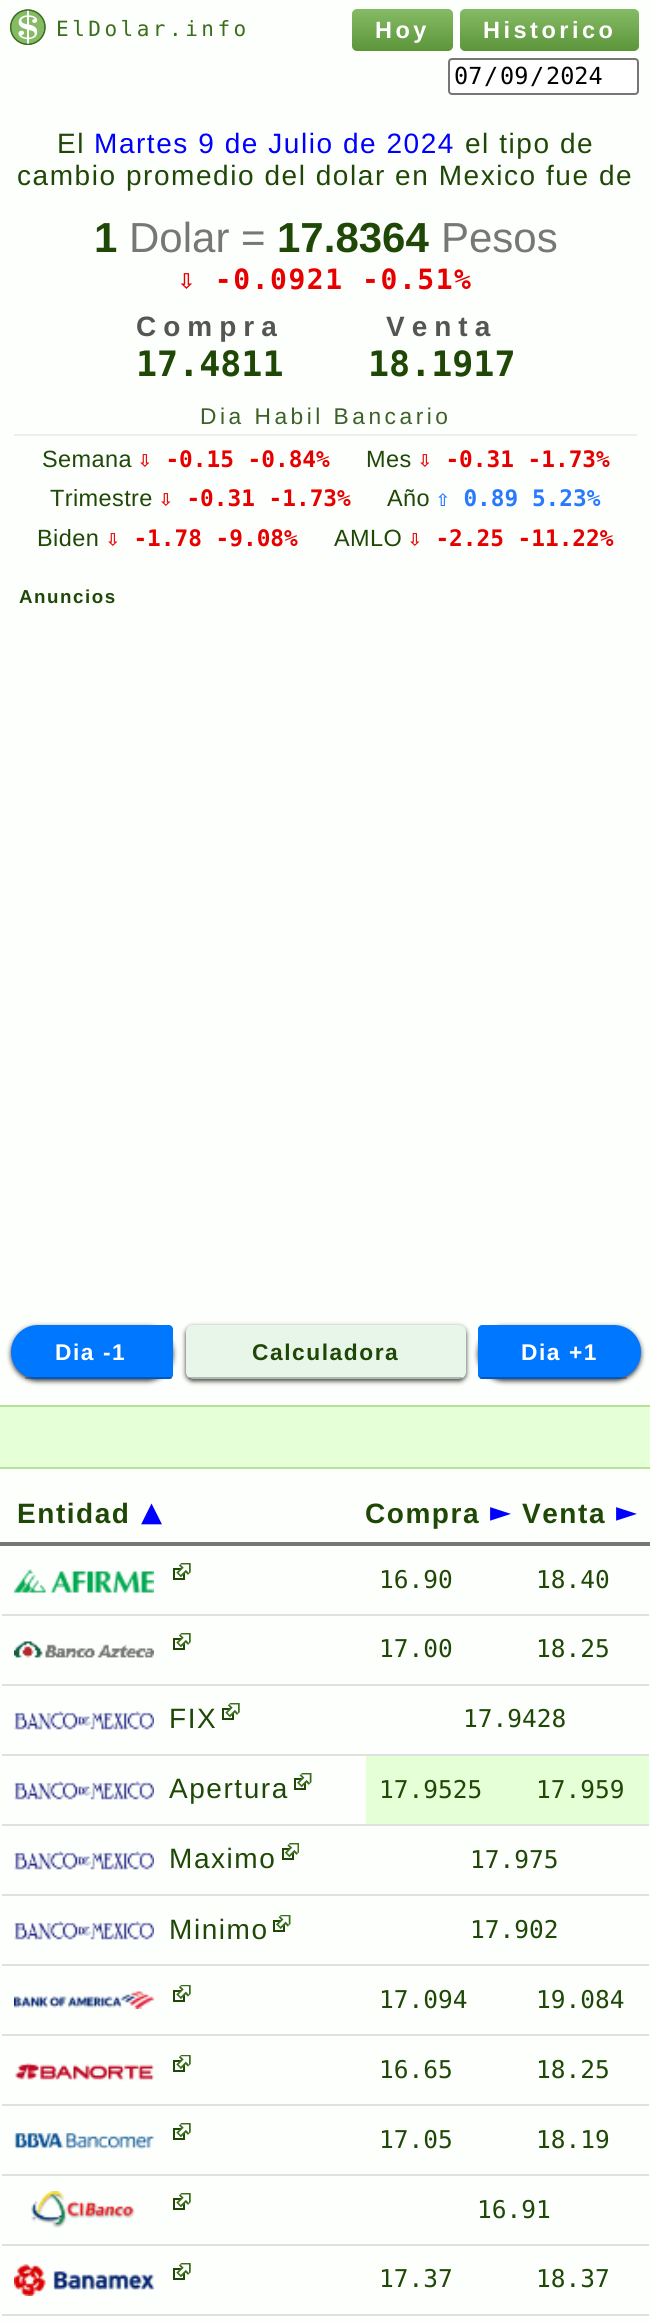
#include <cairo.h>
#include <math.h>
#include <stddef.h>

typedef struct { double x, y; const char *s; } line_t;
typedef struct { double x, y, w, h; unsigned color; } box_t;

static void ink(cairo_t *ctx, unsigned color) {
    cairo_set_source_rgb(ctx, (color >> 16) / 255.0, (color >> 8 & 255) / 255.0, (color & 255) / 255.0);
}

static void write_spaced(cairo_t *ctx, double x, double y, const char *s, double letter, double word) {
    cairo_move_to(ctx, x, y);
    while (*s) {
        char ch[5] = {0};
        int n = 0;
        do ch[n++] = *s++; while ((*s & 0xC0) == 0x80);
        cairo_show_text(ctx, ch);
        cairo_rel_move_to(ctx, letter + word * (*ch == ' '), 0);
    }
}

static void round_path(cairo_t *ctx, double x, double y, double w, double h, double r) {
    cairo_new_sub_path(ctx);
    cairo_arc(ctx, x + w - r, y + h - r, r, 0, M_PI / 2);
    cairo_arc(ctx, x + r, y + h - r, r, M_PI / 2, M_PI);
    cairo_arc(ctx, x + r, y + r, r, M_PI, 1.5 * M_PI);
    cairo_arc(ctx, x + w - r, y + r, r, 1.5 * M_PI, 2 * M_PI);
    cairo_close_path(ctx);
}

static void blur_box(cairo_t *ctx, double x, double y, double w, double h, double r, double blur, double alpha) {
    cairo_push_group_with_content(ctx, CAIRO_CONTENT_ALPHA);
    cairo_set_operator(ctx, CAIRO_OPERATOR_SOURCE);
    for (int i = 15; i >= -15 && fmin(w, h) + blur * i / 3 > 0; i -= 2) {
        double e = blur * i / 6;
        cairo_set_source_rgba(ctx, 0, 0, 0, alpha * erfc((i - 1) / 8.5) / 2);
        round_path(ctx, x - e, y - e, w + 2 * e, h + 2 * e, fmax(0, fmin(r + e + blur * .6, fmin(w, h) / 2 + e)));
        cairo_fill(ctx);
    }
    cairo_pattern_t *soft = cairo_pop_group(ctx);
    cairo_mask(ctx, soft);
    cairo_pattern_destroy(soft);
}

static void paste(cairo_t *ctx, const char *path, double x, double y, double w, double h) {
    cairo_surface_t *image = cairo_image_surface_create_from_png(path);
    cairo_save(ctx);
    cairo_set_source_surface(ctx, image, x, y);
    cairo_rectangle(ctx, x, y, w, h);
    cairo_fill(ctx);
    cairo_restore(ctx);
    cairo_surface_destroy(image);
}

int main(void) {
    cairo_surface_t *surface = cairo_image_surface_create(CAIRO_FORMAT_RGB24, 650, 2322);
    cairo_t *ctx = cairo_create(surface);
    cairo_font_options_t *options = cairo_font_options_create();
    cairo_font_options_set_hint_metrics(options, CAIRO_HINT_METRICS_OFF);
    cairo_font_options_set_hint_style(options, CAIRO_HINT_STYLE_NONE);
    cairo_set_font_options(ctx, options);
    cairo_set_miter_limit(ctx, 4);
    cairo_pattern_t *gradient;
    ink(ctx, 0xFDFFFC);
    cairo_paint(ctx);
    paste(ctx, "media/1.png", 9, 9, 37, 37);
    cairo_select_font_face(ctx, "DejaVu Sans Mono", CAIRO_FONT_SLANT_NORMAL, CAIRO_FONT_WEIGHT_NORMAL);
    cairo_set_font_size(ctx, 21);
    ink(ctx, 0x3A6E1B);
    write_spaced(ctx, 56, 36, "ElDolar.info", 3.5, 0);
    gradient = cairo_pattern_create_linear(403, 9, 403, 51);
    cairo_pattern_add_color_stop_rgba(gradient, 0, 0.522, 0.733, 0.396, 1);
    cairo_pattern_add_color_stop_rgba(gradient, 1, 0.361, 0.584, 0.227, 1);
    cairo_set_source(ctx, gradient);
    cairo_pattern_destroy(gradient);
    round_path(ctx, 352, 9, 101, 42, 5);
    cairo_fill(ctx);
    cairo_select_font_face(ctx, "Liberation Sans", CAIRO_FONT_SLANT_NORMAL, CAIRO_FONT_WEIGHT_BOLD);
    cairo_set_font_size(ctx, 23.5);
    ink(ctx, 0xFFFFFF);
    write_spaced(ctx, 375, 38, "Hoy", 3.5, 0);
    gradient = cairo_pattern_create_linear(550, 9, 550, 51);
    cairo_pattern_add_color_stop_rgba(gradient, 0, 0.522, 0.733, 0.396, 1);
    cairo_pattern_add_color_stop_rgba(gradient, 1, 0.361, 0.584, 0.227, 1);
    cairo_set_source(ctx, gradient);
    cairo_pattern_destroy(gradient);
    round_path(ctx, 460, 9, 179, 42, 5);
    cairo_fill(ctx);
    ink(ctx, 0xFFFFFF);
    write_spaced(ctx, 483, 38, "Historico", 3.5, 0);
    round_path(ctx, 449, 59, 189, 35, 3);
    cairo_fill_preserve(ctx);
    ink(ctx, 0x767676);
    cairo_stroke(ctx);
    cairo_select_font_face(ctx, "DejaVu Sans Mono", CAIRO_FONT_SLANT_NORMAL, CAIRO_FONT_WEIGHT_NORMAL);
    ink(ctx, 0x000000);
    {
        static const line_t items[] = {
            {454, 84, "07"},
            {484, 84, "/"},
            {500, 84, "09"},
            {530, 84, "/"},
            {546, 84, "2024"},
        };
        for (size_t i = 0; i < sizeof items / sizeof *items; i++) {
            cairo_move_to(ctx, items[i].x, items[i].y);
            cairo_show_text(ctx, items[i].s);
        }
    }
    cairo_select_font_face(ctx, "Liberation Sans", CAIRO_FONT_SLANT_NORMAL, CAIRO_FONT_WEIGHT_NORMAL);
    cairo_set_font_size(ctx, 28);
    ink(ctx, 0x1F4807);
    write_spaced(ctx, 57, 153, "El", 1.55, 0);
    ink(ctx, 0x0000FF);
    write_spaced(ctx, 94, 153, "Martes 9 de Julio de 2024", 1.55, 0);
    ink(ctx, 0x1F4807);
    write_spaced(ctx, 465, 153, "el tipo de", 1.55, 0);
    write_spaced(ctx, 17, 185, "cambio promedio del dolar en Mexico fue de", 1.55, 0);
    cairo_select_font_face(ctx, "Liberation Sans", CAIRO_FONT_SLANT_NORMAL, CAIRO_FONT_WEIGHT_BOLD);
    cairo_set_font_size(ctx, 42);
    cairo_move_to(ctx, 94, 252);
    cairo_show_text(ctx, "1");
    cairo_select_font_face(ctx, "Liberation Sans", CAIRO_FONT_SLANT_NORMAL, CAIRO_FONT_WEIGHT_NORMAL);
    ink(ctx, 0x777777);
    cairo_move_to(ctx, 129, 252);
    cairo_show_text(ctx, "Dolar =");
    cairo_select_font_face(ctx, "Liberation Sans", CAIRO_FONT_SLANT_NORMAL, CAIRO_FONT_WEIGHT_BOLD);
    ink(ctx, 0x1F4807);
    cairo_move_to(ctx, 277, 252);
    cairo_show_text(ctx, "17.8364");
    cairo_select_font_face(ctx, "Liberation Sans", CAIRO_FONT_SLANT_NORMAL, CAIRO_FONT_WEIGHT_NORMAL);
    ink(ctx, 0x777777);
    cairo_move_to(ctx, 441, 252);
    cairo_show_text(ctx, "Pesos");
    cairo_select_font_face(ctx, "DejaVu Sans Mono", CAIRO_FONT_SLANT_NORMAL, CAIRO_FONT_WEIGHT_BOLD);
    cairo_set_font_size(ctx, 28);
    ink(ctx, 0xE70000);
    write_spaced(ctx, 178, 289, "⇩ -0.0921 -0.51%", 1.55, 0);
    cairo_select_font_face(ctx, "Liberation Sans", CAIRO_FONT_SLANT_NORMAL, CAIRO_FONT_WEIGHT_BOLD);
    ink(ctx, 0x555555);
    write_spaced(ctx, 136, 336, "Compra", 7, 0);
    cairo_select_font_face(ctx, "DejaVu Sans Mono", CAIRO_FONT_SLANT_NORMAL, CAIRO_FONT_WEIGHT_BOLD);
    cairo_set_font_size(ctx, 35);
    ink(ctx, 0x1F4807);
    cairo_move_to(ctx, 136, 376);
    cairo_show_text(ctx, "17.4811");
    cairo_select_font_face(ctx, "Liberation Sans", CAIRO_FONT_SLANT_NORMAL, CAIRO_FONT_WEIGHT_BOLD);
    cairo_set_font_size(ctx, 28);
    ink(ctx, 0x555555);
    write_spaced(ctx, 386, 336, "Venta", 7, 0);
    cairo_select_font_face(ctx, "DejaVu Sans Mono", CAIRO_FONT_SLANT_NORMAL, CAIRO_FONT_WEIGHT_BOLD);
    cairo_set_font_size(ctx, 35);
    ink(ctx, 0x1F4807);
    cairo_move_to(ctx, 368, 376);
    cairo_show_text(ctx, "18.1917");
    cairo_select_font_face(ctx, "Liberation Sans", CAIRO_FONT_SLANT_NORMAL, CAIRO_FONT_WEIGHT_NORMAL);
    cairo_set_font_size(ctx, 22.75);
    ink(ctx, 0x3C6027);
    write_spaced(ctx, 200, 424, "Dia Habil Bancario", 3.5, 0);
    ink(ctx, 0xEEEEEE);
    cairo_rectangle(ctx, 14, 434, 623, 2);
    cairo_fill(ctx);
    cairo_set_font_size(ctx, 23.5);
    ink(ctx, 0x1F4807);
    write_spaced(ctx, 42, 467, "Semana", 0.4, 0);
    cairo_select_font_face(ctx, "DejaVu Sans Mono", CAIRO_FONT_SLANT_NORMAL, CAIRO_FONT_WEIGHT_BOLD);
    cairo_set_font_size(ctx, 22.75);
    ink(ctx, 0xE70000);
    cairo_move_to(ctx, 138, 467);
    cairo_show_text(ctx, "⇩ -0.15 -0.84%");
    cairo_select_font_face(ctx, "Liberation Sans", CAIRO_FONT_SLANT_NORMAL, CAIRO_FONT_WEIGHT_NORMAL);
    cairo_set_font_size(ctx, 23.5);
    ink(ctx, 0x1F4807);
    write_spaced(ctx, 366, 467, "Mes", 0.4, 0);
    cairo_select_font_face(ctx, "DejaVu Sans Mono", CAIRO_FONT_SLANT_NORMAL, CAIRO_FONT_WEIGHT_BOLD);
    cairo_set_font_size(ctx, 22.75);
    ink(ctx, 0xE70000);
    cairo_move_to(ctx, 418, 467);
    cairo_show_text(ctx, "⇩ -0.31 -1.73%");
    cairo_select_font_face(ctx, "Liberation Sans", CAIRO_FONT_SLANT_NORMAL, CAIRO_FONT_WEIGHT_NORMAL);
    cairo_set_font_size(ctx, 23.5);
    ink(ctx, 0x1F4807);
    write_spaced(ctx, 50, 506, "Trimestre", 0.4, 0);
    cairo_select_font_face(ctx, "DejaVu Sans Mono", CAIRO_FONT_SLANT_NORMAL, CAIRO_FONT_WEIGHT_BOLD);
    cairo_set_font_size(ctx, 22.75);
    ink(ctx, 0xE70000);
    cairo_move_to(ctx, 159, 506);
    cairo_show_text(ctx, "⇩ -0.31 -1.73%");
    cairo_select_font_face(ctx, "Liberation Sans", CAIRO_FONT_SLANT_NORMAL, CAIRO_FONT_WEIGHT_NORMAL);
    cairo_set_font_size(ctx, 23.5);
    ink(ctx, 0x1F4807);
    write_spaced(ctx, 387, 506, "Año", 0.4, 0);
    cairo_select_font_face(ctx, "DejaVu Sans Mono", CAIRO_FONT_SLANT_NORMAL, CAIRO_FONT_WEIGHT_BOLD);
    cairo_set_font_size(ctx, 22.75);
    ink(ctx, 0x2979FF);
    cairo_move_to(ctx, 436, 506);
    cairo_show_text(ctx, "⇧ 0.89 5.23%");
    cairo_select_font_face(ctx, "Liberation Sans", CAIRO_FONT_SLANT_NORMAL, CAIRO_FONT_WEIGHT_NORMAL);
    cairo_set_font_size(ctx, 23.5);
    ink(ctx, 0x1F4807);
    write_spaced(ctx, 37, 546, "Biden", 0.4, 0);
    cairo_select_font_face(ctx, "DejaVu Sans Mono", CAIRO_FONT_SLANT_NORMAL, CAIRO_FONT_WEIGHT_BOLD);
    cairo_set_font_size(ctx, 22.75);
    ink(ctx, 0xE70000);
    cairo_move_to(ctx, 106, 546);
    cairo_show_text(ctx, "⇩ -1.78 -9.08%");
    cairo_select_font_face(ctx, "Liberation Sans", CAIRO_FONT_SLANT_NORMAL, CAIRO_FONT_WEIGHT_NORMAL);
    cairo_set_font_size(ctx, 23.5);
    ink(ctx, 0x1F4807);
    write_spaced(ctx, 334, 546, "AMLO", 0.4, 0);
    cairo_select_font_face(ctx, "DejaVu Sans Mono", CAIRO_FONT_SLANT_NORMAL, CAIRO_FONT_WEIGHT_BOLD);
    cairo_set_font_size(ctx, 22.75);
    ink(ctx, 0xE70000);
    cairo_move_to(ctx, 408, 546);
    cairo_show_text(ctx, "⇩ -2.25 -11.22%");
    cairo_select_font_face(ctx, "Liberation Sans", CAIRO_FONT_SLANT_NORMAL, CAIRO_FONT_WEIGHT_BOLD);
    cairo_set_font_size(ctx, 18.75);
    ink(ctx, 0x1F4807);
    write_spaced(ctx, 19, 603, "Anuncios", 1.55, 0);
    ink(ctx, 0x000000);
    blur_box(ctx, 11, 1327, 162, 54, 27, 2.5, 0.77);
    ink(ctx, 0x0077FF);
    cairo_new_path(ctx);
    cairo_move_to(ctx, 38, 1325);
    cairo_line_to(ctx, 169, 1325);
    cairo_curve_to(ctx, 171, 1325, 173, 1327, 173, 1329);
    cairo_line_to(ctx, 173, 1375);
    cairo_curve_to(ctx, 173, 1377, 171, 1379, 169, 1379);
    cairo_line_to(ctx, 38, 1379);
    cairo_curve_to(ctx, 23, 1379, 11, 1367, 11, 1352);
    cairo_curve_to(ctx, 11, 1337, 23, 1325, 38, 1325);
    cairo_close_path(ctx);
    cairo_fill(ctx);
    cairo_set_source_rgba(ctx, 0, 0, 0, 0.25);
    cairo_rectangle(ctx, 25, 1377, 147, 2);
    cairo_fill(ctx);
    cairo_set_font_size(ctx, 22.75);
    ink(ctx, 0xFFFFFF);
    write_spaced(ctx, 55, 1360, "Dia -1", 1.55, 0);
    ink(ctx, 0x000000);
    blur_box(ctx, 186, 1327, 280, 54, 7, 2.5, 0.77);
    ink(ctx, 0xE8F5E9);
    round_path(ctx, 186, 1325, 280, 54, 7);
    cairo_fill(ctx);
    cairo_set_source_rgba(ctx, 0, 0, 0, 0.25);
    cairo_rectangle(ctx, 189, 1377, 273, 2);
    cairo_fill(ctx);
    ink(ctx, 0x1F4807);
    write_spaced(ctx, 252, 1360, "Calculadora", 1.55, 0);
    ink(ctx, 0x000000);
    blur_box(ctx, 478, 1327, 163, 54, 27, 2.5, 0.77);
    ink(ctx, 0x0077FF);
    cairo_new_path(ctx);
    cairo_move_to(ctx, 482, 1325);
    cairo_line_to(ctx, 614, 1325);
    cairo_curve_to(ctx, 629, 1325, 641, 1337, 641, 1352);
    cairo_curve_to(ctx, 641, 1367, 629, 1379, 614, 1379);
    cairo_line_to(ctx, 482, 1379);
    cairo_curve_to(ctx, 480, 1379, 478, 1377, 478, 1375);
    cairo_line_to(ctx, 478, 1329);
    cairo_curve_to(ctx, 478, 1327, 480, 1325, 482, 1325);
    cairo_close_path(ctx);
    cairo_fill(ctx);
    cairo_set_source_rgba(ctx, 0, 0, 0, 0.25);
    cairo_rectangle(ctx, 480, 1377, 147, 2);
    cairo_fill(ctx);
    ink(ctx, 0xFFFFFF);
    write_spaced(ctx, 521, 1360, "Dia +1", 1.55, 0);
    {
        static const box_t items[] = {
            {0, 1407, 650, 60, 0xE5FFD6},
            {0, 1405, 650, 2, 0xB5E19B},
            {0, 1467, 650, 2, 0xB5E19B},
        };
        for (size_t i = 0; i < sizeof items / sizeof *items; i++) {
            ink(ctx, items[i].color);
            cairo_rectangle(ctx, items[i].x, items[i].y, items[i].w, items[i].h);
            cairo_fill(ctx);
        }
    }
    cairo_set_font_size(ctx, 28);
    ink(ctx, 0x1F4807);
    write_spaced(ctx, 17, 1523, "Entidad", 1.55, 0);
    cairo_select_font_face(ctx, "DejaVu Sans Mono", CAIRO_FONT_SLANT_NORMAL, CAIRO_FONT_WEIGHT_BOLD);
    cairo_set_font_size(ctx, 35);
    ink(ctx, 0x0000FF);
    write_spaced(ctx, 141, 1523, "▲", 1.55, 0);
    cairo_select_font_face(ctx, "Liberation Sans", CAIRO_FONT_SLANT_NORMAL, CAIRO_FONT_WEIGHT_BOLD);
    cairo_set_font_size(ctx, 28);
    ink(ctx, 0x1F4807);
    write_spaced(ctx, 365, 1523, "Compra", 1.55, 0);
    cairo_select_font_face(ctx, "DejaVu Sans Mono", CAIRO_FONT_SLANT_NORMAL, CAIRO_FONT_WEIGHT_BOLD);
    cairo_set_font_size(ctx, 35);
    ink(ctx, 0x0000FF);
    write_spaced(ctx, 490, 1523, "►", 1.55, 0);
    ink(ctx, 0x777777);
    cairo_rectangle(ctx, 0, 1542, 650, 4);
    cairo_fill(ctx);
    cairo_select_font_face(ctx, "Liberation Sans", CAIRO_FONT_SLANT_NORMAL, CAIRO_FONT_WEIGHT_BOLD);
    cairo_set_font_size(ctx, 28);
    ink(ctx, 0x1F4807);
    write_spaced(ctx, 522, 1523, "Venta", 1.55, 0);
    cairo_select_font_face(ctx, "DejaVu Sans Mono", CAIRO_FONT_SLANT_NORMAL, CAIRO_FONT_WEIGHT_BOLD);
    cairo_set_font_size(ctx, 35);
    ink(ctx, 0x0000FF);
    write_spaced(ctx, 616, 1523, "►", 1.55, 0);
    paste(ctx, "media/2.png", 14, 1569, 140, 24);
    paste(ctx, "media/3.png", 173, 1563, 18, 17);
    cairo_select_font_face(ctx, "DejaVu Sans Mono", CAIRO_FONT_SLANT_NORMAL, CAIRO_FONT_WEIGHT_NORMAL);
    cairo_set_font_size(ctx, 24.5);
    ink(ctx, 0x1F4807);
    cairo_move_to(ctx, 379, 1588);
    cairo_show_text(ctx, "16.90");
    ink(ctx, 0xE0E0E0);
    cairo_rectangle(ctx, 2, 1614, 647, 2);
    cairo_fill(ctx);
    ink(ctx, 0x1F4807);
    cairo_move_to(ctx, 536, 1588);
    cairo_show_text(ctx, "18.40");
    paste(ctx, "media/4.png", 14, 1641, 140, 17);
    paste(ctx, "media/3.png", 173, 1633, 18, 17);
    cairo_move_to(ctx, 379, 1657);
    cairo_show_text(ctx, "17.00");
    ink(ctx, 0xE0E0E0);
    cairo_rectangle(ctx, 2, 1684, 647, 2);
    cairo_fill(ctx);
    ink(ctx, 0x1F4807);
    cairo_move_to(ctx, 536, 1657);
    cairo_show_text(ctx, "18.25");
    paste(ctx, "media/5.png", 14, 1711, 140, 19);
    cairo_select_font_face(ctx, "Liberation Sans", CAIRO_FONT_SLANT_NORMAL, CAIRO_FONT_WEIGHT_NORMAL);
    cairo_set_font_size(ctx, 28);
    write_spaced(ctx, 169, 1728, "FIX", 1.55, 0);
    paste(ctx, "media/3.png", 222, 1703, 18, 17);
    ink(ctx, 0xE0E0E0);
    cairo_rectangle(ctx, 2, 1754, 647, 2);
    cairo_fill(ctx);
    cairo_select_font_face(ctx, "DejaVu Sans Mono", CAIRO_FONT_SLANT_NORMAL, CAIRO_FONT_WEIGHT_NORMAL);
    cairo_set_font_size(ctx, 24.5);
    ink(ctx, 0x1F4807);
    cairo_move_to(ctx, 463, 1727);
    cairo_show_text(ctx, "17.9428");
    paste(ctx, "media/5.png", 14, 1781, 140, 19);
    cairo_select_font_face(ctx, "Liberation Sans", CAIRO_FONT_SLANT_NORMAL, CAIRO_FONT_WEIGHT_NORMAL);
    cairo_set_font_size(ctx, 28);
    write_spaced(ctx, 169, 1798, "Apertura", 1.55, 0);
    paste(ctx, "media/6.png", 294, 1773, 18, 17);
    ink(ctx, 0xE5FFD6);
    cairo_rectangle(ctx, 366, 1756, 283, 68);
    cairo_fill(ctx);
    cairo_select_font_face(ctx, "DejaVu Sans Mono", CAIRO_FONT_SLANT_NORMAL, CAIRO_FONT_WEIGHT_NORMAL);
    cairo_set_font_size(ctx, 24.5);
    ink(ctx, 0x1F4807);
    cairo_move_to(ctx, 379, 1798);
    cairo_show_text(ctx, "17.9525");
    ink(ctx, 0xE0E0E0);
    cairo_rectangle(ctx, 2, 1824, 647, 2);
    cairo_fill(ctx);
    ink(ctx, 0x1F4807);
    cairo_move_to(ctx, 536, 1798);
    cairo_show_text(ctx, "17.959");
    paste(ctx, "media/5.png", 14, 1851, 140, 19);
    cairo_select_font_face(ctx, "Liberation Sans", CAIRO_FONT_SLANT_NORMAL, CAIRO_FONT_WEIGHT_NORMAL);
    cairo_set_font_size(ctx, 28);
    write_spaced(ctx, 169, 1868, "Maximo", 1.55, 0);
    paste(ctx, "media/7.png", 282, 1843, 17, 17);
    ink(ctx, 0xE0E0E0);
    cairo_rectangle(ctx, 2, 1894, 647, 2);
    cairo_fill(ctx);
    cairo_select_font_face(ctx, "DejaVu Sans Mono", CAIRO_FONT_SLANT_NORMAL, CAIRO_FONT_WEIGHT_NORMAL);
    cairo_set_font_size(ctx, 24.5);
    ink(ctx, 0x1F4807);
    cairo_move_to(ctx, 470, 1868);
    cairo_show_text(ctx, "17.975");
    paste(ctx, "media/5.png", 14, 1921, 140, 19);
    cairo_select_font_face(ctx, "Liberation Sans", CAIRO_FONT_SLANT_NORMAL, CAIRO_FONT_WEIGHT_NORMAL);
    cairo_set_font_size(ctx, 28);
    write_spaced(ctx, 169, 1939, "Minimo", 1.55, 0);
    paste(ctx, "media/8.png", 273, 1915, 18, 17);
    ink(ctx, 0xE0E0E0);
    cairo_rectangle(ctx, 2, 1964, 647, 2);
    cairo_fill(ctx);
    cairo_select_font_face(ctx, "DejaVu Sans Mono", CAIRO_FONT_SLANT_NORMAL, CAIRO_FONT_WEIGHT_NORMAL);
    cairo_set_font_size(ctx, 24.5);
    ink(ctx, 0x1F4807);
    cairo_move_to(ctx, 470, 1938);
    cairo_show_text(ctx, "17.902");
    paste(ctx, "media/9.png", 14, 1991, 140, 18);
    paste(ctx, "media/10.png", 173, 1985, 18, 17);
    cairo_move_to(ctx, 379, 2008);
    cairo_show_text(ctx, "17.094");
    ink(ctx, 0xE0E0E0);
    cairo_rectangle(ctx, 2, 2034, 647, 2);
    cairo_fill(ctx);
    ink(ctx, 0x1F4807);
    cairo_move_to(ctx, 536, 2008);
    cairo_show_text(ctx, "19.084");
    paste(ctx, "media/11.png", 14, 2063, 140, 18);
    paste(ctx, "media/10.png", 173, 2055, 18, 17);
    cairo_move_to(ctx, 379, 2078);
    cairo_show_text(ctx, "16.65");
    ink(ctx, 0xE0E0E0);
    cairo_rectangle(ctx, 2, 2104, 647, 2);
    cairo_fill(ctx);
    ink(ctx, 0x1F4807);
    cairo_move_to(ctx, 536, 2078);
    cairo_show_text(ctx, "18.25");
    paste(ctx, "media/12.png", 14, 2133, 140, 16);
    paste(ctx, "media/3.png", 173, 2123, 18, 17);
    cairo_move_to(ctx, 379, 2148);
    cairo_show_text(ctx, "17.05");
    ink(ctx, 0xE0E0E0);
    cairo_rectangle(ctx, 2, 2174, 647, 2);
    cairo_fill(ctx);
    ink(ctx, 0x1F4807);
    cairo_move_to(ctx, 536, 2148);
    cairo_show_text(ctx, "18.19");
    paste(ctx, "media/13.png", 31, 2191, 104, 37);
    paste(ctx, "media/3.png", 173, 2193, 18, 17);
    ink(ctx, 0xE0E0E0);
    cairo_rectangle(ctx, 2, 2244, 647, 2);
    cairo_fill(ctx);
    ink(ctx, 0x1F4807);
    cairo_move_to(ctx, 477, 2218);
    cairo_show_text(ctx, "16.91");
    paste(ctx, "media/14.png", 14, 2264, 140, 32);
    paste(ctx, "media/3.png", 173, 2263, 18, 17);
    cairo_move_to(ctx, 379, 2287);
    cairo_show_text(ctx, "17.37");
    ink(ctx, 0xE0E0E0);
    cairo_rectangle(ctx, 2, 2314, 647, 2);
    cairo_fill(ctx);
    ink(ctx, 0x1F4807);
    cairo_move_to(ctx, 536, 2287);
    cairo_show_text(ctx, "18.37");
    cairo_surface_write_to_png(surface, "image.png");
    cairo_font_options_destroy(options);
    cairo_destroy(ctx);
    cairo_surface_destroy(surface);
    return 0;
}
